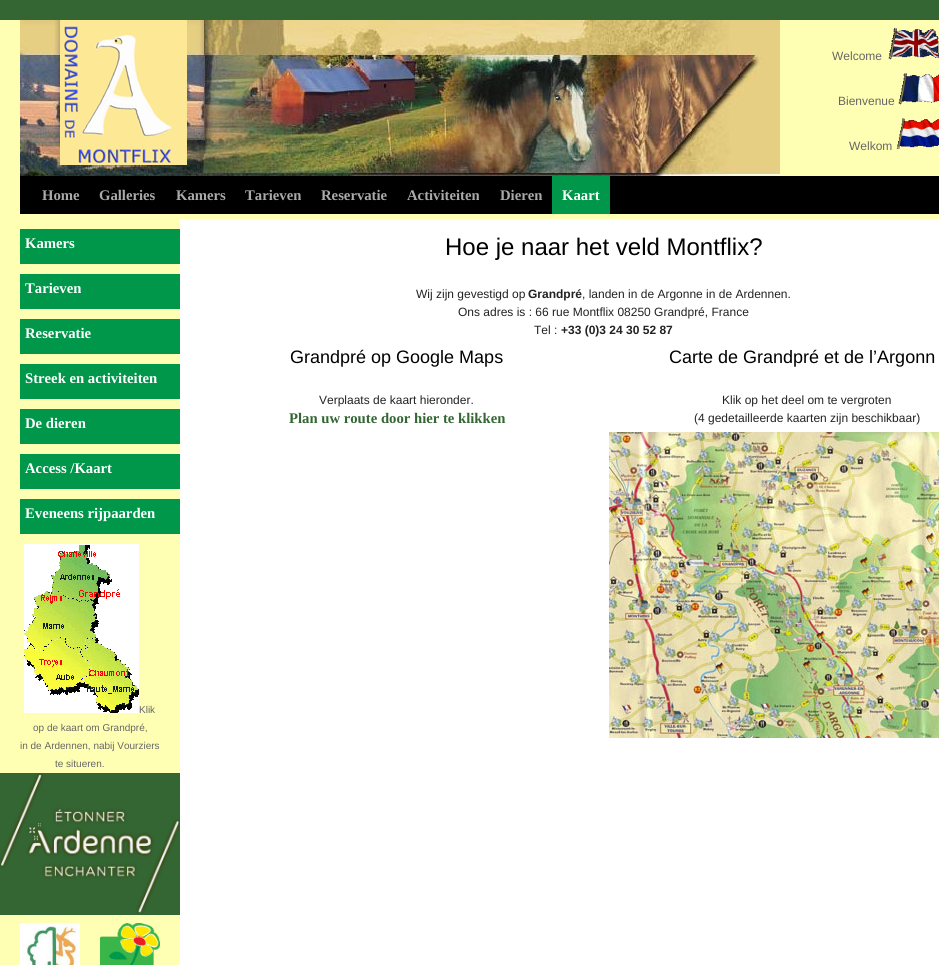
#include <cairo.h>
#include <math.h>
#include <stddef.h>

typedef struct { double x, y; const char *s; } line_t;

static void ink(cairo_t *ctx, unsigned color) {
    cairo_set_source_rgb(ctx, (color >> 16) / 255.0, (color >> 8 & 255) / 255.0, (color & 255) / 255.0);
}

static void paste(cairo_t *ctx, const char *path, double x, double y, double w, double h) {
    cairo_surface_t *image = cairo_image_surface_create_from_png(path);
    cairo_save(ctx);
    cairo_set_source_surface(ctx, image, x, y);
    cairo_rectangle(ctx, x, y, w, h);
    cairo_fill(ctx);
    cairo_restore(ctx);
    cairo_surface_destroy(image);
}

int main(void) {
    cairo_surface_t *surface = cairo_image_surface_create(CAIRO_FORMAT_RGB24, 939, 965);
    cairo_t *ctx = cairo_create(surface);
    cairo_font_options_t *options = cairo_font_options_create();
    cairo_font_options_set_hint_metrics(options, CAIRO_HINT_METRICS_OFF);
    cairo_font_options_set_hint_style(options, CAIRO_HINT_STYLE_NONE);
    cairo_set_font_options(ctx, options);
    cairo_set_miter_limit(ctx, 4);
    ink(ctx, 0x336633);
    cairo_paint(ctx);
    ink(ctx, 0xFFFFB3);
    cairo_rectangle(ctx, 0, 20, 939, 945);
    cairo_fill(ctx);
    paste(ctx, "media/1.png", 20, 20, 760, 156);
    paste(ctx, "media/2.png", 60, 20, 127, 145);
    cairo_select_font_face(ctx, "Liberation Sans", CAIRO_FONT_SLANT_NORMAL, CAIRO_FONT_WEIGHT_NORMAL);
    cairo_set_font_size(ctx, 12);
    ink(ctx, 0x666666);
    cairo_move_to(ctx, 832, 60);
    cairo_show_text(ctx, "Welcome");
    paste(ctx, "media/3.png", 888, 27, 51, 33);
    cairo_move_to(ctx, 838, 105);
    cairo_show_text(ctx, "Bienvenue");
    paste(ctx, "media/4.png", 898, 73, 41, 32);
    cairo_move_to(ctx, 849, 150);
    cairo_show_text(ctx, "Welkom");
    paste(ctx, "media/5.png", 896, 118, 43, 31);
    ink(ctx, 0x000000);
    cairo_rectangle(ctx, 20, 176, 919, 38);
    cairo_fill(ctx);
    cairo_select_font_face(ctx, "Liberation Serif", CAIRO_FONT_SLANT_NORMAL, CAIRO_FONT_WEIGHT_BOLD);
    cairo_set_font_size(ctx, 14.7);
    ink(ctx, 0xAAAAAA);
    {
        static const line_t items[] = {
            {42, 200, "Home"},
            {99, 200, "Galleries"},
            {176, 200, "Kamers"},
            {245, 200, "Tarieven"},
            {321, 200, "Reservatie"},
            {407, 200, "Activiteiten"},
            {500, 200, "Dieren"},
        };
        for (size_t i = 0; i < sizeof items / sizeof *items; i++) {
            cairo_move_to(ctx, items[i].x, items[i].y);
            cairo_show_text(ctx, items[i].s);
        }
    }
    ink(ctx, 0x00974B);
    cairo_rectangle(ctx, 552, 176, 58, 38);
    cairo_fill(ctx);
    ink(ctx, 0xFFFFFF);
    cairo_move_to(ctx, 562, 200);
    cairo_show_text(ctx, "Kaart");
    ink(ctx, 0x00974B);
    cairo_rectangle(ctx, 20, 229, 160, 35);
    cairo_fill(ctx);
    ink(ctx, 0xFFFFFF);
    cairo_move_to(ctx, 25, 248);
    cairo_show_text(ctx, "Kamers");
    ink(ctx, 0x00974B);
    cairo_rectangle(ctx, 20, 274, 160, 35);
    cairo_fill(ctx);
    ink(ctx, 0xFFFFFF);
    cairo_move_to(ctx, 25, 293);
    cairo_show_text(ctx, "Tarieven");
    ink(ctx, 0x00974B);
    cairo_rectangle(ctx, 20, 319, 160, 35);
    cairo_fill(ctx);
    ink(ctx, 0xFFFFFF);
    cairo_move_to(ctx, 25, 338);
    cairo_show_text(ctx, "Reservatie");
    ink(ctx, 0x00974B);
    cairo_rectangle(ctx, 20, 364, 160, 35);
    cairo_fill(ctx);
    ink(ctx, 0xFFFFFF);
    cairo_move_to(ctx, 25, 383);
    cairo_show_text(ctx, "Streek en activiteiten");
    ink(ctx, 0x00974B);
    cairo_rectangle(ctx, 20, 409, 160, 35);
    cairo_fill(ctx);
    ink(ctx, 0xFFFFFF);
    cairo_move_to(ctx, 25, 428);
    cairo_show_text(ctx, "De dieren");
    ink(ctx, 0x00974B);
    cairo_rectangle(ctx, 20, 454, 160, 35);
    cairo_fill(ctx);
    ink(ctx, 0xFFFFFF);
    cairo_move_to(ctx, 25, 473);
    cairo_show_text(ctx, "Access /Kaart");
    ink(ctx, 0x00974B);
    cairo_rectangle(ctx, 20, 499, 160, 35);
    cairo_fill(ctx);
    ink(ctx, 0xFFFFFF);
    cairo_move_to(ctx, 25, 518);
    cairo_show_text(ctx, "Eveneens rijpaarden");
    paste(ctx, "media/6.png", 24, 544, 115, 169);
    cairo_select_font_face(ctx, "Liberation Sans", CAIRO_FONT_SLANT_NORMAL, CAIRO_FONT_WEIGHT_NORMAL);
    cairo_set_font_size(ctx, 10);
    ink(ctx, 0x666666);
    {
        static const line_t items[] = {
            {139, 713, "Klik"},
            {33, 731, "op de kaart om Grandpré,"},
            {20, 749, "in de Ardennen, nabij Vourziers"},
            {55, 767, "te situeren."},
        };
        for (size_t i = 0; i < sizeof items / sizeof *items; i++) {
            cairo_move_to(ctx, items[i].x, items[i].y);
            cairo_show_text(ctx, items[i].s);
        }
    }
    ink(ctx, 0x336633);
    cairo_rectangle(ctx, 0, 773, 180, 142);
    cairo_fill(ctx);
    paste(ctx, "media/7.png", 0, 773, 180, 141);
    paste(ctx, "media/8.png", 20, 923, 60, 42);
    paste(ctx, "media/9.png", 100, 923, 60, 42);
    ink(ctx, 0xFFFFFF);
    cairo_rectangle(ctx, 180, 219, 759, 746);
    cairo_fill(ctx);
    cairo_set_font_size(ctx, 24);
    ink(ctx, 0x000000);
    cairo_move_to(ctx, 445, 255);
    cairo_show_text(ctx, "Hoe je naar het veld Montflix?");
    cairo_set_font_size(ctx, 12);
    ink(ctx, 0x222222);
    cairo_move_to(ctx, 416, 298);
    cairo_show_text(ctx, "Wij zijn gevestigd op");
    cairo_select_font_face(ctx, "Liberation Sans", CAIRO_FONT_SLANT_NORMAL, CAIRO_FONT_WEIGHT_BOLD);
    cairo_move_to(ctx, 528, 298);
    cairo_show_text(ctx, "Grandpré");
    cairo_select_font_face(ctx, "Liberation Sans", CAIRO_FONT_SLANT_NORMAL, CAIRO_FONT_WEIGHT_NORMAL);
    {
        static const line_t items[] = {
            {582, 298, ", landen in de Argonne in de Ardennen."},
            {458, 316, "Ons adres is : 66 rue Montflix 08250 Grandpré, France"},
            {534, 334, "Tel :"},
        };
        for (size_t i = 0; i < sizeof items / sizeof *items; i++) {
            cairo_move_to(ctx, items[i].x, items[i].y);
            cairo_show_text(ctx, items[i].s);
        }
    }
    cairo_select_font_face(ctx, "Liberation Sans", CAIRO_FONT_SLANT_NORMAL, CAIRO_FONT_WEIGHT_BOLD);
    cairo_move_to(ctx, 561, 334);
    cairo_show_text(ctx, "+33 (0)3 24 30 52 87");
    cairo_select_font_face(ctx, "Liberation Sans", CAIRO_FONT_SLANT_NORMAL, CAIRO_FONT_WEIGHT_NORMAL);
    cairo_set_font_size(ctx, 18);
    ink(ctx, 0x000000);
    cairo_move_to(ctx, 290, 363);
    cairo_show_text(ctx, "Grandpré op Google Maps");
    cairo_set_font_size(ctx, 12);
    ink(ctx, 0x222222);
    cairo_move_to(ctx, 319, 404);
    cairo_show_text(ctx, "Verplaats de kaart hieronder.");
    cairo_select_font_face(ctx, "Liberation Serif", CAIRO_FONT_SLANT_NORMAL, CAIRO_FONT_WEIGHT_BOLD);
    cairo_set_font_size(ctx, 14.7);
    ink(ctx, 0x336633);
    cairo_move_to(ctx, 289, 423);
    cairo_show_text(ctx, "Plan uw route door hier te klikken");
    cairo_select_font_face(ctx, "Liberation Sans", CAIRO_FONT_SLANT_NORMAL, CAIRO_FONT_WEIGHT_NORMAL);
    cairo_set_font_size(ctx, 18);
    ink(ctx, 0x000000);
    cairo_move_to(ctx, 669, 363);
    cairo_show_text(ctx, "Carte de Grandpré et de l’Argonn");
    cairo_set_font_size(ctx, 12);
    ink(ctx, 0x222222);
    cairo_move_to(ctx, 722, 404);
    cairo_show_text(ctx, "Klik op het deel om te vergroten");
    cairo_move_to(ctx, 694, 422);
    cairo_show_text(ctx, "(4 gedetailleerde kaarten zijn beschikbaar)");
    paste(ctx, "media/10.png", 609, 432, 330, 306);
    cairo_surface_write_to_png(surface, "image.png");
    cairo_font_options_destroy(options);
    cairo_destroy(ctx);
    cairo_surface_destroy(surface);
    return 0;
}
